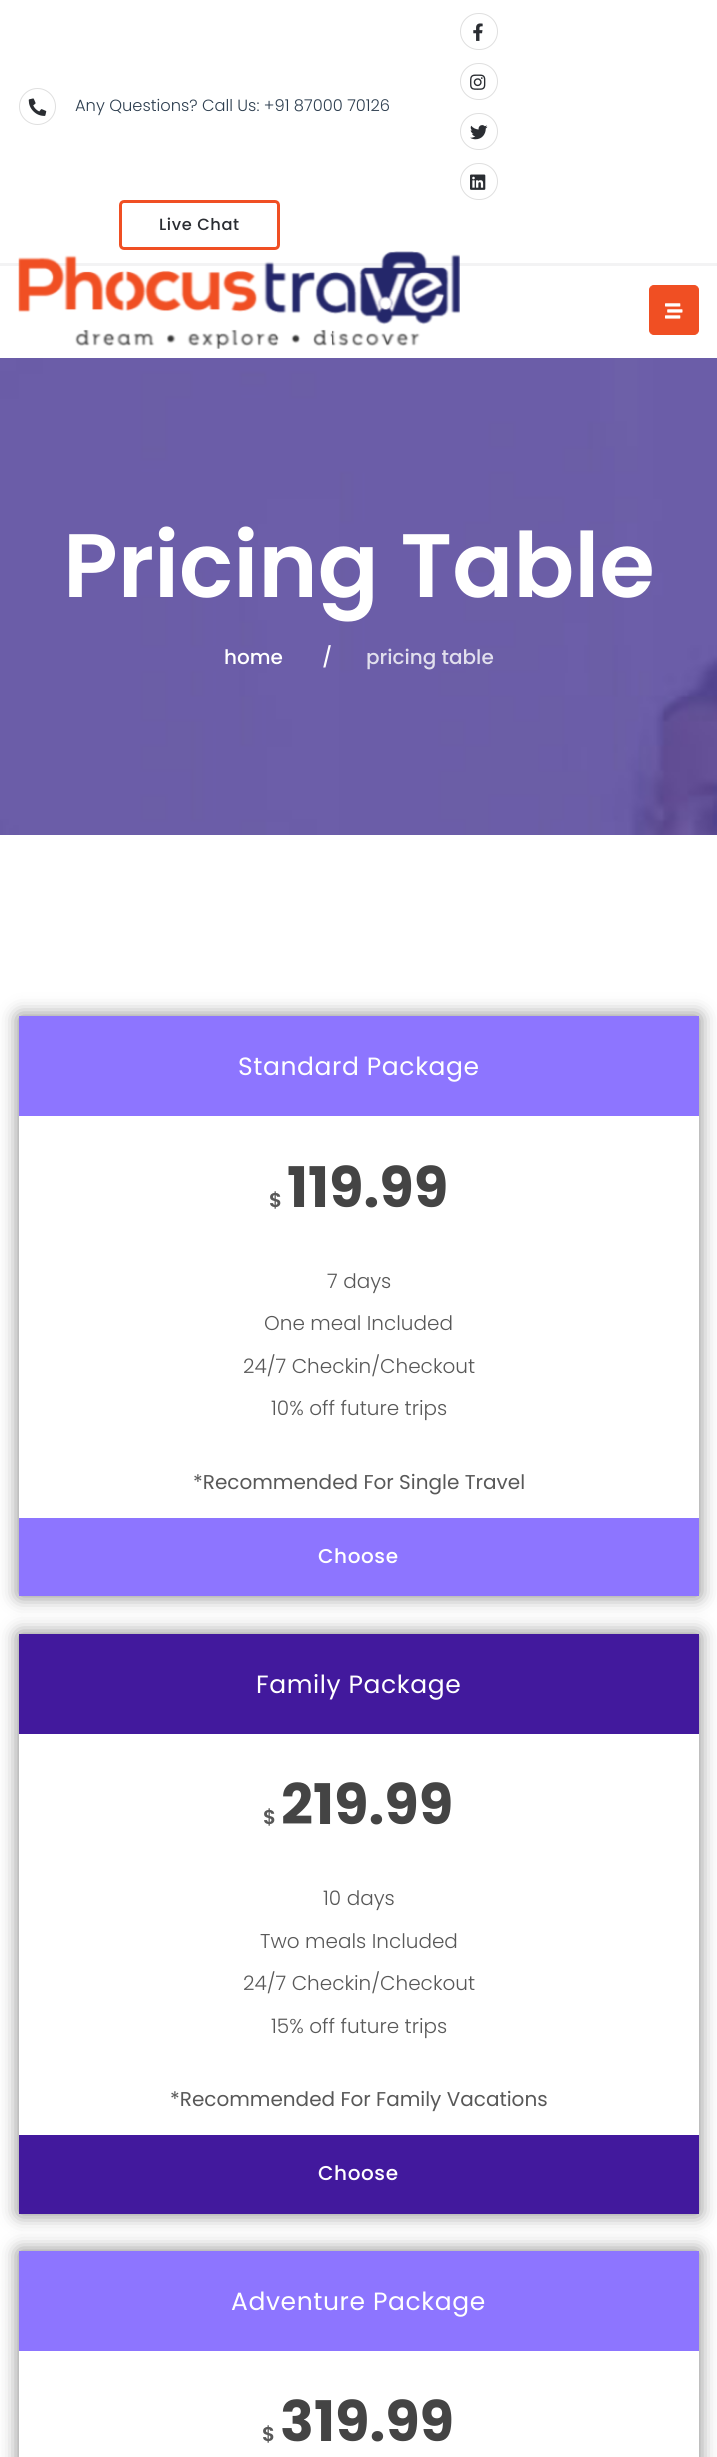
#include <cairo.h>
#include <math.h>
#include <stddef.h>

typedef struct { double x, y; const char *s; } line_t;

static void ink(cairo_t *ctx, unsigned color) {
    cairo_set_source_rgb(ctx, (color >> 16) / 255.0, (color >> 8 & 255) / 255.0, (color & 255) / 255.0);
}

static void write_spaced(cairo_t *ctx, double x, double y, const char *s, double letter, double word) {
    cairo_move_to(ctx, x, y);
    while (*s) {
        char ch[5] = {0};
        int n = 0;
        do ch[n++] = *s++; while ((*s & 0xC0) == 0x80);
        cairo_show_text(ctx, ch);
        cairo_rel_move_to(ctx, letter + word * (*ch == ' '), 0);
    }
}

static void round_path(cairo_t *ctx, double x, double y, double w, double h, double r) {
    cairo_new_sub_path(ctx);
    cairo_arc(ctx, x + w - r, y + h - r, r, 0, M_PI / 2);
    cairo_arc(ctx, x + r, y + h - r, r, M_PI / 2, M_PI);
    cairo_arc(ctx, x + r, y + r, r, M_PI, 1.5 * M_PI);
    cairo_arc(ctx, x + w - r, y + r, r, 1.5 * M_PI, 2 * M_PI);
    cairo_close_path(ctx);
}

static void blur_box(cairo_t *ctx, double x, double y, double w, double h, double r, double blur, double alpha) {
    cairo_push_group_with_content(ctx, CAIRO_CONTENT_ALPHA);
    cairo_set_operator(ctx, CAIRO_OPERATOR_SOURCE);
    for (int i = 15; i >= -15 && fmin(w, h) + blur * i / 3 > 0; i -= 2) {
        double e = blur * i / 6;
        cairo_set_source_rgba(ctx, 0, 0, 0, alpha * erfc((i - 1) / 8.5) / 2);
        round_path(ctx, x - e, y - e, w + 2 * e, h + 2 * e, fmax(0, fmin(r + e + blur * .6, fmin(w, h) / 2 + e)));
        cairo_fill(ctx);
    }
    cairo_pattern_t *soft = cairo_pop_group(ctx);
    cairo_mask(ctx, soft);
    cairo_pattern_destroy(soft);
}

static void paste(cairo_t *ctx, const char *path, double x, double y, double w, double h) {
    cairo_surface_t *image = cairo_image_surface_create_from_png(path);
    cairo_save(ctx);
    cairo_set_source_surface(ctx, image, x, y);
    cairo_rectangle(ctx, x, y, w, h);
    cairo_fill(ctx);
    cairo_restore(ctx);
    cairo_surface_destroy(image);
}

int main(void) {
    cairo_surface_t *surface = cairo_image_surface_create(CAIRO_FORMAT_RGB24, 717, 2457);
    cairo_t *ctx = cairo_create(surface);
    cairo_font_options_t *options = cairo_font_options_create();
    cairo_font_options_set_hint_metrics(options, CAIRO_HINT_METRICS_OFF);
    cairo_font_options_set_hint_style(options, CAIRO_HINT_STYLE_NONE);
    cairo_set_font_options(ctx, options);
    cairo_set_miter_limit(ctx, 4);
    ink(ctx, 0xFFFFFF);
    cairo_paint(ctx);
    cairo_arc(ctx, 37.5, 106.5, 18, 0, 2 * M_PI);
    ink(ctx, 0xDFDFDF);
    cairo_set_line_width(ctx, 1);
    cairo_stroke(ctx);
    paste(ctx, "media/1.png", 28, 98, 19, 18);
    cairo_select_font_face(ctx, "Poppins Light", CAIRO_FONT_SLANT_NORMAL, CAIRO_FONT_WEIGHT_NORMAL);
    cairo_set_font_size(ctx, 16.25);
    ink(ctx, 0x2D3E4F);
    cairo_move_to(ctx, 75, 111);
    cairo_show_text(ctx, "Any Questions? Call Us: +91 87000 70126");
    round_path(ctx, 460.5, 13.5, 37, 36, 18);
    ink(ctx, 0xDFDFDF);
    cairo_stroke(ctx);
    paste(ctx, "media/2.png", 473, 23, 10, 18);
    round_path(ctx, 460.5, 63.5, 37, 36, 18);
    cairo_stroke(ctx);
    paste(ctx, "media/3.png", 470, 74, 16, 16);
    round_path(ctx, 460.5, 113.5, 37, 36, 18);
    cairo_stroke(ctx);
    paste(ctx, "media/4.png", 470, 125, 18, 15);
    round_path(ctx, 460.5, 163.5, 37, 36, 18);
    cairo_stroke(ctx);
    paste(ctx, "media/5.png", 470, 174, 16, 16);
    round_path(ctx, 120.5, 201.5, 158, 47, 3.5);
    ink(ctx, 0xF04F23);
    cairo_set_line_width(ctx, 3);
    cairo_stroke(ctx);
    cairo_select_font_face(ctx, "Poppins Medium", CAIRO_FONT_SLANT_NORMAL, CAIRO_FONT_WEIGHT_NORMAL);
    ink(ctx, 0x2A2D32);
    write_spaced(ctx, 159, 230, "Live Chat", 0.6, 0);
    ink(ctx, 0xF3F3F4);
    cairo_rectangle(ctx, 0, 263, 717, 3);
    cairo_fill(ctx);
    paste(ctx, "media/6.png", 18, 251, 442, 98);
    ink(ctx, 0xF04F23);
    round_path(ctx, 649.5, 285.5, 49, 49, 4.5);
    cairo_fill_preserve(ctx);
    cairo_set_line_width(ctx, 1);
    cairo_stroke(ctx);
    paste(ctx, "media/7.png", 665, 303, 18, 16);
    paste(ctx, "media/8.png", 0, 358, 717, 477);
    cairo_select_font_face(ctx, "Poppins SemiBold", CAIRO_FONT_SLANT_NORMAL, CAIRO_FONT_WEIGHT_NORMAL);
    cairo_set_font_size(ctx, 90);
    ink(ctx, 0xFFFFFF);
    cairo_move_to(ctx, 63, 597);
    cairo_show_text(ctx, "Pricing Table");
    cairo_select_font_face(ctx, "Poppins Medium", CAIRO_FONT_SLANT_NORMAL, CAIRO_FONT_WEIGHT_NORMAL);
    cairo_set_font_size(ctx, 20);
    cairo_move_to(ctx, 224, 664);
    cairo_show_text(ctx, "home");
    cairo_move_to(ctx, 322, 664);
    cairo_show_text(ctx, "/");
    ink(ctx, 0xE1DFED);
    cairo_move_to(ctx, 366, 664);
    cairo_show_text(ctx, "pricing table");
    ink(ctx, 0x000000);
    blur_box(ctx, 19, 1016, 680, 580, 0, 9.5, 0.5);
    ink(ctx, 0xFFFFFF);
    cairo_rectangle(ctx, 19, 1116, 680, 402);
    cairo_fill(ctx);
    ink(ctx, 0x8D75FF);
    cairo_rectangle(ctx, 19, 1016, 680, 100);
    cairo_fill(ctx);
    cairo_select_font_face(ctx, "Poppins", CAIRO_FONT_SLANT_NORMAL, CAIRO_FONT_WEIGHT_NORMAL);
    cairo_set_font_size(ctx, 25);
    ink(ctx, 0xFFFFFF);
    write_spaced(ctx, 238, 1075, "Standard Package", 0.6, 0);
    cairo_select_font_face(ctx, "Poppins SemiBold", CAIRO_FONT_SLANT_NORMAL, CAIRO_FONT_WEIGHT_NORMAL);
    cairo_set_font_size(ctx, 20);
    ink(ctx, 0x585858);
    cairo_move_to(ctx, 269, 1207);
    cairo_show_text(ctx, "$");
    cairo_select_font_face(ctx, "Poppins", CAIRO_FONT_SLANT_NORMAL, CAIRO_FONT_WEIGHT_BOLD);
    cairo_set_font_size(ctx, 56);
    ink(ctx, 0x444444);
    cairo_move_to(ctx, 287, 1207);
    cairo_show_text(ctx, "119.99");
    cairo_select_font_face(ctx, "Poppins Light", CAIRO_FONT_SLANT_NORMAL, CAIRO_FONT_WEIGHT_NORMAL);
    cairo_set_font_size(ctx, 20);
    ink(ctx, 0x585858);
    {
        static const line_t items[] = {
            {327, 1288, "7 days"},
            {264, 1330, "One meal Included"},
            {243, 1373, "24/7 Checkin/Checkout"},
            {271, 1415, "10% off future trips"},
        };
        for (size_t i = 0; i < sizeof items / sizeof *items; i++) {
            cairo_move_to(ctx, items[i].x, items[i].y);
            cairo_show_text(ctx, items[i].s);
        }
    }
    cairo_select_font_face(ctx, "Poppins", CAIRO_FONT_SLANT_NORMAL, CAIRO_FONT_WEIGHT_NORMAL);
    cairo_move_to(ctx, 193, 1489);
    cairo_show_text(ctx, "*Recommended For Single Travel");
    ink(ctx, 0x8D75FF);
    cairo_rectangle(ctx, 19, 1518, 680, 78);
    cairo_fill(ctx);
    cairo_select_font_face(ctx, "Poppins Medium", CAIRO_FONT_SLANT_NORMAL, CAIRO_FONT_WEIGHT_NORMAL);
    ink(ctx, 0xFFFFFF);
    write_spaced(ctx, 318, 1563, "Choose", 0.6, 0);
    ink(ctx, 0x000000);
    blur_box(ctx, 19, 1634, 680, 580, 0, 9.5, 0.5);
    ink(ctx, 0xFFFFFF);
    cairo_rectangle(ctx, 19, 1734, 680, 401);
    cairo_fill(ctx);
    ink(ctx, 0x42199D);
    cairo_rectangle(ctx, 19, 1634, 680, 100);
    cairo_fill(ctx);
    cairo_select_font_face(ctx, "Poppins", CAIRO_FONT_SLANT_NORMAL, CAIRO_FONT_WEIGHT_NORMAL);
    cairo_set_font_size(ctx, 25);
    ink(ctx, 0xFFFFFF);
    write_spaced(ctx, 256, 1693, "Family Package", 0.6, 0);
    cairo_select_font_face(ctx, "Poppins SemiBold", CAIRO_FONT_SLANT_NORMAL, CAIRO_FONT_WEIGHT_NORMAL);
    cairo_set_font_size(ctx, 20);
    ink(ctx, 0x585858);
    cairo_move_to(ctx, 263, 1824);
    cairo_show_text(ctx, "$");
    cairo_select_font_face(ctx, "Poppins", CAIRO_FONT_SLANT_NORMAL, CAIRO_FONT_WEIGHT_BOLD);
    cairo_set_font_size(ctx, 56);
    ink(ctx, 0x444444);
    cairo_move_to(ctx, 281, 1824);
    cairo_show_text(ctx, "219.99");
    cairo_select_font_face(ctx, "Poppins Light", CAIRO_FONT_SLANT_NORMAL, CAIRO_FONT_WEIGHT_NORMAL);
    cairo_set_font_size(ctx, 20);
    ink(ctx, 0x585858);
    {
        static const line_t items[] = {
            {323, 1905, "10 days"},
            {260, 1948, "Two meals Included"},
            {243, 1990, "24/7 Checkin/Checkout"},
            {271, 2033, "15% off future trips"},
        };
        for (size_t i = 0; i < sizeof items / sizeof *items; i++) {
            cairo_move_to(ctx, items[i].x, items[i].y);
            cairo_show_text(ctx, items[i].s);
        }
    }
    cairo_select_font_face(ctx, "Poppins", CAIRO_FONT_SLANT_NORMAL, CAIRO_FONT_WEIGHT_NORMAL);
    cairo_move_to(ctx, 170, 2106);
    cairo_show_text(ctx, "*Recommended For Family Vacations");
    ink(ctx, 0x42199D);
    cairo_rectangle(ctx, 19, 2135, 680, 79);
    cairo_fill(ctx);
    cairo_select_font_face(ctx, "Poppins Medium", CAIRO_FONT_SLANT_NORMAL, CAIRO_FONT_WEIGHT_NORMAL);
    ink(ctx, 0xFFFFFF);
    write_spaced(ctx, 318, 2180, "Choose", 0.6, 0);
    ink(ctx, 0x000000);
    blur_box(ctx, 19, 2251, 680, 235, 0, 9.5, 0.5);
    ink(ctx, 0xFFFFFF);
    cairo_rectangle(ctx, 19, 2351, 680, 106);
    cairo_fill(ctx);
    ink(ctx, 0x8D75FF);
    cairo_rectangle(ctx, 19, 2251, 680, 100);
    cairo_fill(ctx);
    cairo_select_font_face(ctx, "Poppins", CAIRO_FONT_SLANT_NORMAL, CAIRO_FONT_WEIGHT_NORMAL);
    cairo_set_font_size(ctx, 25);
    ink(ctx, 0xFFFFFF);
    write_spaced(ctx, 231, 2310, "Adventure Package", 0.6, 0);
    cairo_select_font_face(ctx, "Poppins SemiBold", CAIRO_FONT_SLANT_NORMAL, CAIRO_FONT_WEIGHT_NORMAL);
    cairo_set_font_size(ctx, 20);
    ink(ctx, 0x585858);
    cairo_move_to(ctx, 262, 2441);
    cairo_show_text(ctx, "$");
    cairo_select_font_face(ctx, "Poppins", CAIRO_FONT_SLANT_NORMAL, CAIRO_FONT_WEIGHT_BOLD);
    cairo_set_font_size(ctx, 56);
    ink(ctx, 0x444444);
    cairo_move_to(ctx, 280, 2441);
    cairo_show_text(ctx, "319.99");
    cairo_surface_write_to_png(surface, "image.png");
    cairo_font_options_destroy(options);
    cairo_destroy(ctx);
    cairo_surface_destroy(surface);
    return 0;
}
